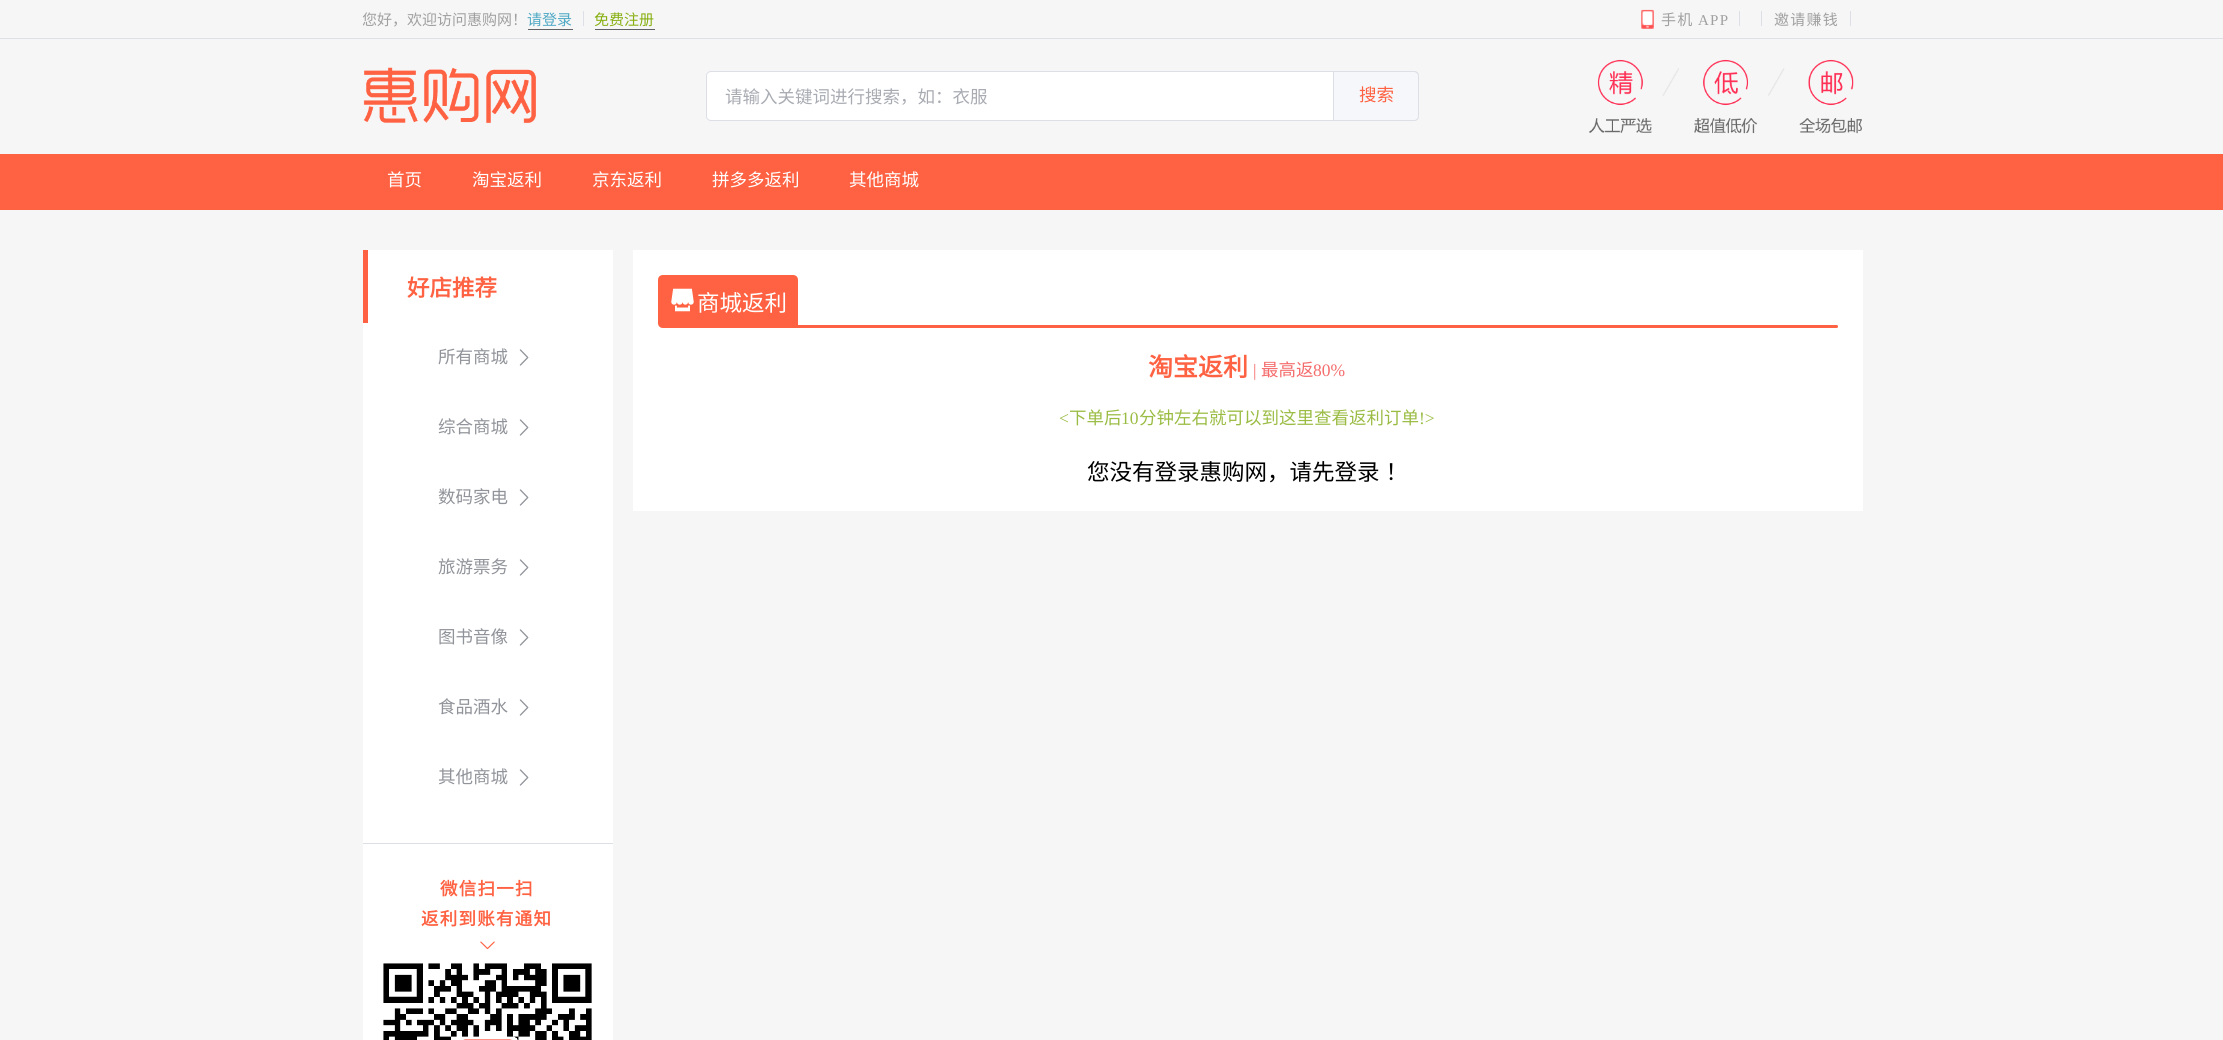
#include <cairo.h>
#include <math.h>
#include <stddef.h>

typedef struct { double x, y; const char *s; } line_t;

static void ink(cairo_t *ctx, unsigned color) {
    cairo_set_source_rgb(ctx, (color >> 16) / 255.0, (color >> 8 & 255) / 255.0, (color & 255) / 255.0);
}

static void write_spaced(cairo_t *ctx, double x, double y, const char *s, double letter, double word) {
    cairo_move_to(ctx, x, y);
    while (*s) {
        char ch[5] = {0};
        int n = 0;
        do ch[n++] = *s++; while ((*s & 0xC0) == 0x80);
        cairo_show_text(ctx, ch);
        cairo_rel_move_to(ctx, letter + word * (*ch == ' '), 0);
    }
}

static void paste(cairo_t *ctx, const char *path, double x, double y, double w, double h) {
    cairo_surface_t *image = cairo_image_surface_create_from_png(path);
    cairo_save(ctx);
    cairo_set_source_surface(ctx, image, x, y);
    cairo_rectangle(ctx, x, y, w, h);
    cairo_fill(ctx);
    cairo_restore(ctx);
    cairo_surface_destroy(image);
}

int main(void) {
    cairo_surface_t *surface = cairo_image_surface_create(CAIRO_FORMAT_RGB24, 2223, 1040);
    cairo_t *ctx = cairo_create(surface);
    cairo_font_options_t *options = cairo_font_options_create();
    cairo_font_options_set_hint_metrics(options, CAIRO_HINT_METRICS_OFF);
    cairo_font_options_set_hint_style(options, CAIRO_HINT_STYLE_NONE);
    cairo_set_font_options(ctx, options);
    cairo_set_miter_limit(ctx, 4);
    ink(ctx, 0xF6F6F6);
    cairo_paint(ctx);
    ink(ctx, 0xDEE2E6);
    cairo_rectangle(ctx, 0, 38, 2223, 1);
    cairo_fill(ctx);
    cairo_save(ctx);
    cairo_rectangle(ctx, 363, 0, 1500, 38);
    cairo_clip(ctx);
    cairo_select_font_face(ctx, "Noto Sans CJK SC", CAIRO_FONT_SLANT_NORMAL, CAIRO_FONT_WEIGHT_NORMAL);
    cairo_set_font_size(ctx, 15);
    ink(ctx, 0xA0A0A0);
    cairo_move_to(ctx, 362, 25);
    cairo_show_text(ctx, "您好，");
    cairo_restore(ctx);
    cairo_select_font_face(ctx, "Noto Sans CJK SC", CAIRO_FONT_SLANT_NORMAL, CAIRO_FONT_WEIGHT_NORMAL);
    cairo_set_font_size(ctx, 15);
    ink(ctx, 0xA0A0A0);
    cairo_move_to(ctx, 407, 25);
    cairo_show_text(ctx, "欢迎访问惠购网！");
    ink(ctx, 0x50A9C5);
    cairo_move_to(ctx, 527, 25);
    cairo_show_text(ctx, "请登录");
    ink(ctx, 0x606266);
    cairo_rectangle(ctx, 528, 29, 45, 1);
    cairo_fill(ctx);
    ink(ctx, 0xDCDFE6);
    cairo_rectangle(ctx, 583, 11, 1, 15);
    cairo_fill(ctx);
    ink(ctx, 0x87AF12);
    cairo_move_to(ctx, 594, 25);
    cairo_show_text(ctx, "免费注册");
    ink(ctx, 0x606266);
    cairo_rectangle(ctx, 595, 29, 60, 1);
    cairo_fill(ctx);
    paste(ctx, "media/1.png", 1641, 9, 13, 20);
    ink(ctx, 0xA0A0A0);
    write_spaced(ctx, 1661, 25, "手机", 1.25, 0);
    cairo_select_font_face(ctx, "Liberation Serif", CAIRO_FONT_SLANT_NORMAL, CAIRO_FONT_WEIGHT_NORMAL);
    write_spaced(ctx, 1698, 25, "APP", 1.25, 0);
    ink(ctx, 0xDCDFE6);
    cairo_rectangle(ctx, 1739, 11, 1, 15);
    cairo_fill(ctx);
    cairo_rectangle(ctx, 1761, 11, 1, 15);
    cairo_fill(ctx);
    cairo_select_font_face(ctx, "Noto Sans CJK SC", CAIRO_FONT_SLANT_NORMAL, CAIRO_FONT_WEIGHT_NORMAL);
    ink(ctx, 0xA0A0A0);
    write_spaced(ctx, 1774, 25, "邀请赚钱", 1.25, 0);
    ink(ctx, 0xDCDFE6);
    cairo_rectangle(ctx, 1850, 11, 1, 15);
    cairo_fill(ctx);
    paste(ctx, "media/2.png", 363, 67, 173, 57);
    ink(ctx, 0xFFFFFF);
    cairo_new_path(ctx);
    cairo_move_to(ctx, 711, 71.5);
    cairo_line_to(ctx, 1333.5, 71.5);
    cairo_line_to(ctx, 1333.5, 120.5);
    cairo_line_to(ctx, 711, 120.5);
    cairo_curve_to(ctx, 708.5, 120.5, 706.5, 118.5, 706.5, 116);
    cairo_line_to(ctx, 706.5, 76);
    cairo_curve_to(ctx, 706.5, 73.5, 708.5, 71.5, 711, 71.5);
    cairo_close_path(ctx);
    cairo_fill_preserve(ctx);
    ink(ctx, 0xDCDFE6);
    cairo_set_line_width(ctx, 1);
    cairo_stroke(ctx);
    cairo_set_font_size(ctx, 17.5);
    ink(ctx, 0xA8ABB2);
    cairo_move_to(ctx, 725, 103);
    cairo_show_text(ctx, "请输入关键词进行搜索，如：衣服");
    ink(ctx, 0xF5F7FA);
    cairo_new_path(ctx);
    cairo_move_to(ctx, 1334, 71);
    cairo_line_to(ctx, 1414, 71);
    cairo_curve_to(ctx, 1417, 71, 1419, 73, 1419, 76);
    cairo_line_to(ctx, 1419, 116);
    cairo_curve_to(ctx, 1419, 119, 1417, 121, 1414, 121);
    cairo_line_to(ctx, 1334, 121);
    cairo_close_path(ctx);
    cairo_fill(ctx);
    ink(ctx, 0xDCDFE6);
    cairo_new_path(ctx);
    cairo_move_to(ctx, 1412, 121);
    cairo_curve_to(ctx, 1420, 121, 1419, 116, 1419, 109);
    cairo_line_to(ctx, 1419, 83);
    cairo_curve_to(ctx, 1419, 76, 1420, 71, 1412, 71);
    cairo_curve_to(ctx, 1415, 71, 1418, 73, 1418, 76);
    cairo_line_to(ctx, 1418, 116);
    cairo_curve_to(ctx, 1418, 119, 1415, 121, 1412, 121);
    cairo_close_path(ctx);
    cairo_fill(ctx);
    cairo_new_path(ctx);
    cairo_move_to(ctx, 1334, 120);
    cairo_line_to(ctx, 1334, 121);
    cairo_line_to(ctx, 1414, 121);
    cairo_curve_to(ctx, 1417, 121, 1419, 119, 1419, 116);
    cairo_line_to(ctx, 1419, 115);
    cairo_curve_to(ctx, 1419, 118, 1417, 120, 1414, 120);
    cairo_close_path(ctx);
    cairo_fill(ctx);
    cairo_new_path(ctx);
    cairo_move_to(ctx, 1334, 72);
    cairo_line_to(ctx, 1414, 72);
    cairo_curve_to(ctx, 1417, 72, 1419, 75, 1419, 78);
    cairo_line_to(ctx, 1419, 76);
    cairo_curve_to(ctx, 1419, 73, 1417, 71, 1414, 71);
    cairo_line_to(ctx, 1334, 71);
    cairo_close_path(ctx);
    cairo_fill(ctx);
    ink(ctx, 0xFF6242);
    cairo_move_to(ctx, 1359, 101);
    cairo_show_text(ctx, "搜索");
    paste(ctx, "media/3.png", 1589, 59, 273, 75);
    cairo_rectangle(ctx, 0, 154, 2223, 56);
    cairo_fill(ctx);
    ink(ctx, 0xFFFFFF);
    {
        static const line_t items[] = {
            {387, 186, "首页"},
            {472, 186, "淘宝返利"},
            {592, 186, "京东返利"},
            {712, 186, "拼多多返利"},
            {849, 186, "其他商城"},
        };
        for (size_t i = 0; i < sizeof items / sizeof *items; i++) {
            cairo_move_to(ctx, items[i].x, items[i].y);
            cairo_show_text(ctx, items[i].s);
        }
    }
    cairo_rectangle(ctx, 363, 250, 250, 790);
    cairo_fill(ctx);
    ink(ctx, 0xFF6242);
    cairo_rectangle(ctx, 363, 250, 5, 73);
    cairo_fill(ctx);
    cairo_select_font_face(ctx, "Noto Sans CJK SC", CAIRO_FONT_SLANT_NORMAL, CAIRO_FONT_WEIGHT_BOLD);
    cairo_set_font_size(ctx, 22.5);
    cairo_move_to(ctx, 407, 296);
    cairo_show_text(ctx, "好店推荐");
    cairo_select_font_face(ctx, "Noto Sans CJK SC", CAIRO_FONT_SLANT_NORMAL, CAIRO_FONT_WEIGHT_NORMAL);
    cairo_set_font_size(ctx, 17.5);
    ink(ctx, 0x909399);
    cairo_move_to(ctx, 438, 363);
    cairo_show_text(ctx, "所有商城");
    paste(ctx, "media/4.png", 519, 349, 10, 17);
    cairo_move_to(ctx, 438, 433);
    cairo_show_text(ctx, "综合商城");
    paste(ctx, "media/4.png", 519, 419, 10, 17);
    cairo_move_to(ctx, 438, 503);
    cairo_show_text(ctx, "数码家电");
    paste(ctx, "media/4.png", 519, 489, 10, 17);
    cairo_move_to(ctx, 438, 573);
    cairo_show_text(ctx, "旅游票务");
    paste(ctx, "media/4.png", 519, 559, 10, 17);
    cairo_move_to(ctx, 438, 643);
    cairo_show_text(ctx, "图书音像");
    paste(ctx, "media/4.png", 519, 629, 10, 17);
    cairo_move_to(ctx, 438, 713);
    cairo_show_text(ctx, "食品酒水");
    paste(ctx, "media/4.png", 519, 699, 10, 17);
    cairo_move_to(ctx, 438, 783);
    cairo_show_text(ctx, "其他商城");
    paste(ctx, "media/4.png", 519, 769, 10, 17);
    ink(ctx, 0xDCDFE6);
    cairo_rectangle(ctx, 363, 843, 250, 1);
    cairo_fill(ctx);
    cairo_select_font_face(ctx, "Noto Sans CJK SC", CAIRO_FONT_SLANT_NORMAL, CAIRO_FONT_WEIGHT_BOLD);
    ink(ctx, 0xFF6242);
    write_spaced(ctx, 440, 895, "微信扫一扫", 1.25, 0);
    write_spaced(ctx, 421, 925, "返利到账有通知", 1.25, 0);
    paste(ctx, "media/5.png", 480, 941, 15, 9);
    paste(ctx, "media/6.png", 383, 963, 209, 77);
    ink(ctx, 0xFFFFFF);
    cairo_rectangle(ctx, 633, 250, 1230, 261);
    cairo_fill(ctx);
    ink(ctx, 0xFF6242);
    cairo_new_path(ctx);
    cairo_move_to(ctx, 663, 275);
    cairo_line_to(ctx, 793, 275);
    cairo_curve_to(ctx, 796, 275, 798, 277, 798, 280);
    cairo_line_to(ctx, 798, 328);
    cairo_line_to(ctx, 663, 328);
    cairo_curve_to(ctx, 660, 328, 658, 326, 658, 323);
    cairo_line_to(ctx, 658, 280);
    cairo_curve_to(ctx, 658, 277, 660, 275, 663, 275);
    cairo_close_path(ctx);
    cairo_fill(ctx);
    paste(ctx, "media/7.png", 671, 288, 23, 24);
    cairo_select_font_face(ctx, "Noto Sans CJK SC", CAIRO_FONT_SLANT_NORMAL, CAIRO_FONT_WEIGHT_NORMAL);
    cairo_set_font_size(ctx, 22.5);
    ink(ctx, 0xFFFFFF);
    cairo_move_to(ctx, 697, 311);
    cairo_show_text(ctx, "商城返利");
    ink(ctx, 0xFF6242);
    cairo_new_path(ctx);
    cairo_move_to(ctx, 798, 325);
    cairo_line_to(ctx, 1836.5, 325);
    cairo_curve_to(ctx, 1837.5, 325, 1838, 325.5, 1838, 326.5);
    cairo_curve_to(ctx, 1838, 327.5, 1837.5, 328, 1836.5, 328);
    cairo_line_to(ctx, 798, 328);
    cairo_close_path(ctx);
    cairo_fill(ctx);
    cairo_select_font_face(ctx, "Noto Sans CJK SC", CAIRO_FONT_SLANT_NORMAL, CAIRO_FONT_WEIGHT_BOLD);
    cairo_set_font_size(ctx, 25);
    cairo_move_to(ctx, 1148, 376);
    cairo_show_text(ctx, "淘宝返利");
    cairo_select_font_face(ctx, "Liberation Serif", CAIRO_FONT_SLANT_NORMAL, CAIRO_FONT_WEIGHT_NORMAL);
    cairo_set_font_size(ctx, 17.5);
    ink(ctx, 0xF56C6C);
    cairo_move_to(ctx, 1253, 376);
    cairo_show_text(ctx, "|");
    cairo_select_font_face(ctx, "Noto Sans CJK SC", CAIRO_FONT_SLANT_NORMAL, CAIRO_FONT_WEIGHT_NORMAL);
    cairo_move_to(ctx, 1261, 376);
    cairo_show_text(ctx, "最高返");
    cairo_select_font_face(ctx, "Liberation Serif", CAIRO_FONT_SLANT_NORMAL, CAIRO_FONT_WEIGHT_NORMAL);
    cairo_move_to(ctx, 1313, 376);
    cairo_show_text(ctx, "80%");
    ink(ctx, 0x9ABC43);
    cairo_move_to(ctx, 1059, 424);
    cairo_show_text(ctx, "<");
    cairo_select_font_face(ctx, "Noto Sans CJK SC", CAIRO_FONT_SLANT_NORMAL, CAIRO_FONT_WEIGHT_NORMAL);
    cairo_move_to(ctx, 1069, 424);
    cairo_show_text(ctx, "下单后");
    cairo_select_font_face(ctx, "Liberation Serif", CAIRO_FONT_SLANT_NORMAL, CAIRO_FONT_WEIGHT_NORMAL);
    cairo_move_to(ctx, 1121, 424);
    cairo_show_text(ctx, "10");
    cairo_select_font_face(ctx, "Noto Sans CJK SC", CAIRO_FONT_SLANT_NORMAL, CAIRO_FONT_WEIGHT_NORMAL);
    cairo_move_to(ctx, 1139, 424);
    cairo_show_text(ctx, "分钟左右就可以到这里查看返利订单");
    cairo_select_font_face(ctx, "Liberation Serif", CAIRO_FONT_SLANT_NORMAL, CAIRO_FONT_WEIGHT_NORMAL);
    cairo_move_to(ctx, 1419, 424);
    cairo_show_text(ctx, "!>");
    cairo_select_font_face(ctx, "Noto Sans CJK SC", CAIRO_FONT_SLANT_NORMAL, CAIRO_FONT_WEIGHT_NORMAL);
    cairo_set_font_size(ctx, 22.5);
    ink(ctx, 0x000000);
    write_spaced(ctx, 1087, 480, "您没有登录惠购网，请先登录 ！", 0, 1);
    cairo_surface_write_to_png(surface, "image.png");
    cairo_font_options_destroy(options);
    cairo_destroy(ctx);
    cairo_surface_destroy(surface);
    return 0;
}
